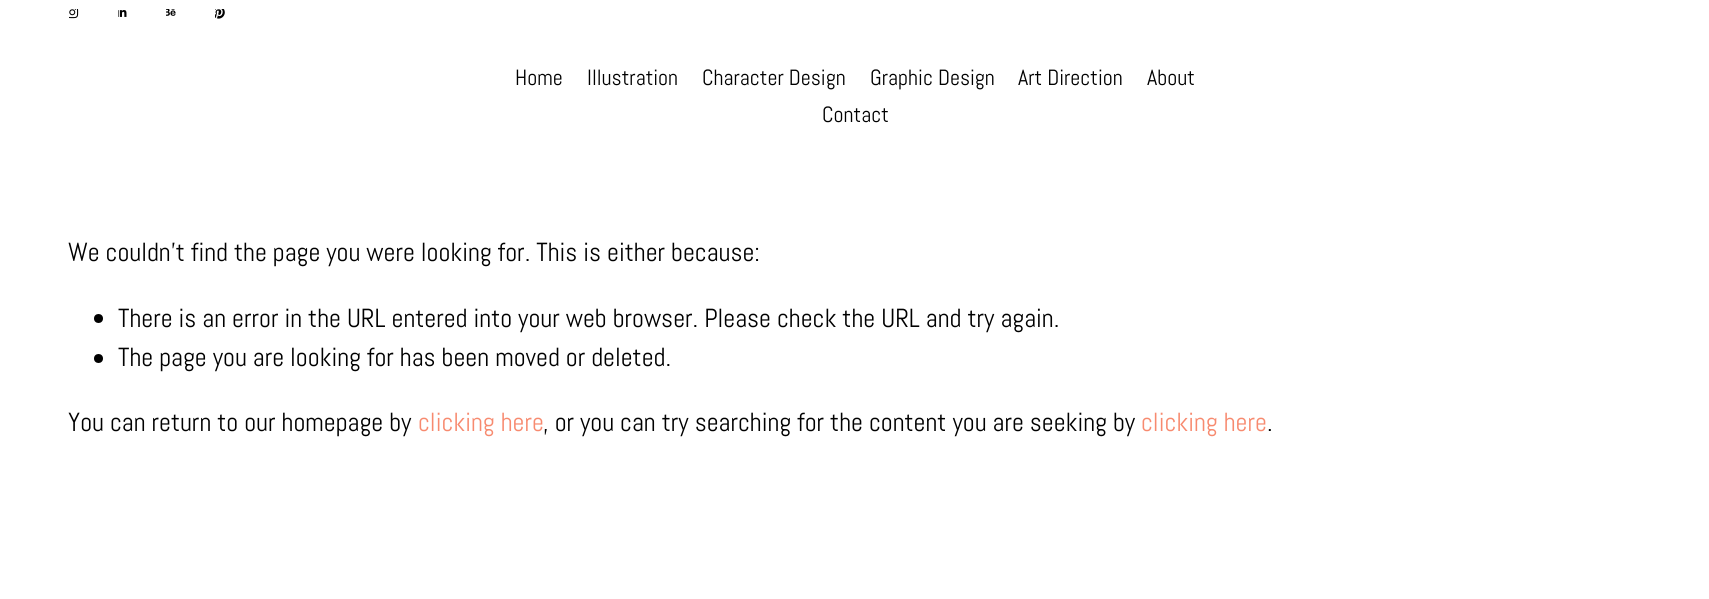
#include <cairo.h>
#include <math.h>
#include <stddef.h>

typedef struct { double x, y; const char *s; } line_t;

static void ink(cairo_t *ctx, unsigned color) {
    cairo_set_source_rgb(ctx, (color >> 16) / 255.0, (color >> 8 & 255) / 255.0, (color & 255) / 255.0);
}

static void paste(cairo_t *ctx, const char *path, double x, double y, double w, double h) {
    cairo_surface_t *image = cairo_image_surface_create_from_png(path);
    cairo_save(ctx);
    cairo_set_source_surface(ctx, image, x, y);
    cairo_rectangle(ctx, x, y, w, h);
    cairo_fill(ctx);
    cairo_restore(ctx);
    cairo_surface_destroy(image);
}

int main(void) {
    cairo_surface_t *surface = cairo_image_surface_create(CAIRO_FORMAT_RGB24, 1709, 599);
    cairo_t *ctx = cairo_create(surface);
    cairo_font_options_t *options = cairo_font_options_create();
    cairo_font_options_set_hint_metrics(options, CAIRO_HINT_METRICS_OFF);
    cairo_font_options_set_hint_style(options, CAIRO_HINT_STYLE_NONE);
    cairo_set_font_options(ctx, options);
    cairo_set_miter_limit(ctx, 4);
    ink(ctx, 0xFFFFFF);
    cairo_paint(ctx);
    paste(ctx, "media/1.png", 69, 9, 10, 10);
    paste(ctx, "media/2.png", 118, 10, 9, 7);
    paste(ctx, "media/3.png", 166, 9, 10, 7);
    paste(ctx, "media/4.png", 215, 9, 10, 10);
    cairo_select_font_face(ctx, "Abel", CAIRO_FONT_SLANT_NORMAL, CAIRO_FONT_WEIGHT_NORMAL);
    cairo_set_font_size(ctx, 22);
    ink(ctx, 0x000000);
    {
        static const line_t items[] = {
            {515, 85, "Home"},
            {587, 85, "Illustration"},
            {702, 85, "Character Design"},
            {870, 85, "Graphic Design"},
            {1018, 85, "Art Direction"},
            {1147, 85, "About"},
            {822, 122, "Contact"},
        };
        for (size_t i = 0; i < sizeof items / sizeof *items; i++) {
            cairo_move_to(ctx, items[i].x, items[i].y);
            cairo_show_text(ctx, items[i].s);
        }
    }
    cairo_set_font_size(ctx, 26.15);
    cairo_move_to(ctx, 68, 261);
    cairo_show_text(ctx, "We couldn't find the page you were looking for. This is either because:");
    cairo_new_path(ctx);
    cairo_arc(ctx, 98.5, 318.5, 4.5, 0, 2 * M_PI);
    cairo_fill(ctx);
    cairo_move_to(ctx, 118, 327);
    cairo_show_text(ctx, "There is an error in the URL entered into your web browser. Please check the URL and try again.");
    cairo_new_path(ctx);
    cairo_arc(ctx, 98.5, 358.5, 4.5, 0, 2 * M_PI);
    cairo_fill(ctx);
    cairo_move_to(ctx, 118, 366);
    cairo_show_text(ctx, "The page you are looking for has been moved or deleted.");
    cairo_move_to(ctx, 68, 431);
    cairo_show_text(ctx, "You can return to our homepage by");
    ink(ctx, 0xF78A6F);
    cairo_move_to(ctx, 418, 431);
    cairo_show_text(ctx, "clicking here");
    ink(ctx, 0x000000);
    cairo_move_to(ctx, 543, 431);
    cairo_show_text(ctx, ", or you can try searching for the content you are seeking by");
    ink(ctx, 0xF78A6F);
    cairo_move_to(ctx, 1141, 431);
    cairo_show_text(ctx, "clicking here");
    ink(ctx, 0x000000);
    cairo_move_to(ctx, 1267, 431);
    cairo_show_text(ctx, ".");
    cairo_surface_write_to_png(surface, "image.png");
    cairo_font_options_destroy(options);
    cairo_destroy(ctx);
    cairo_surface_destroy(surface);
    return 0;
}
